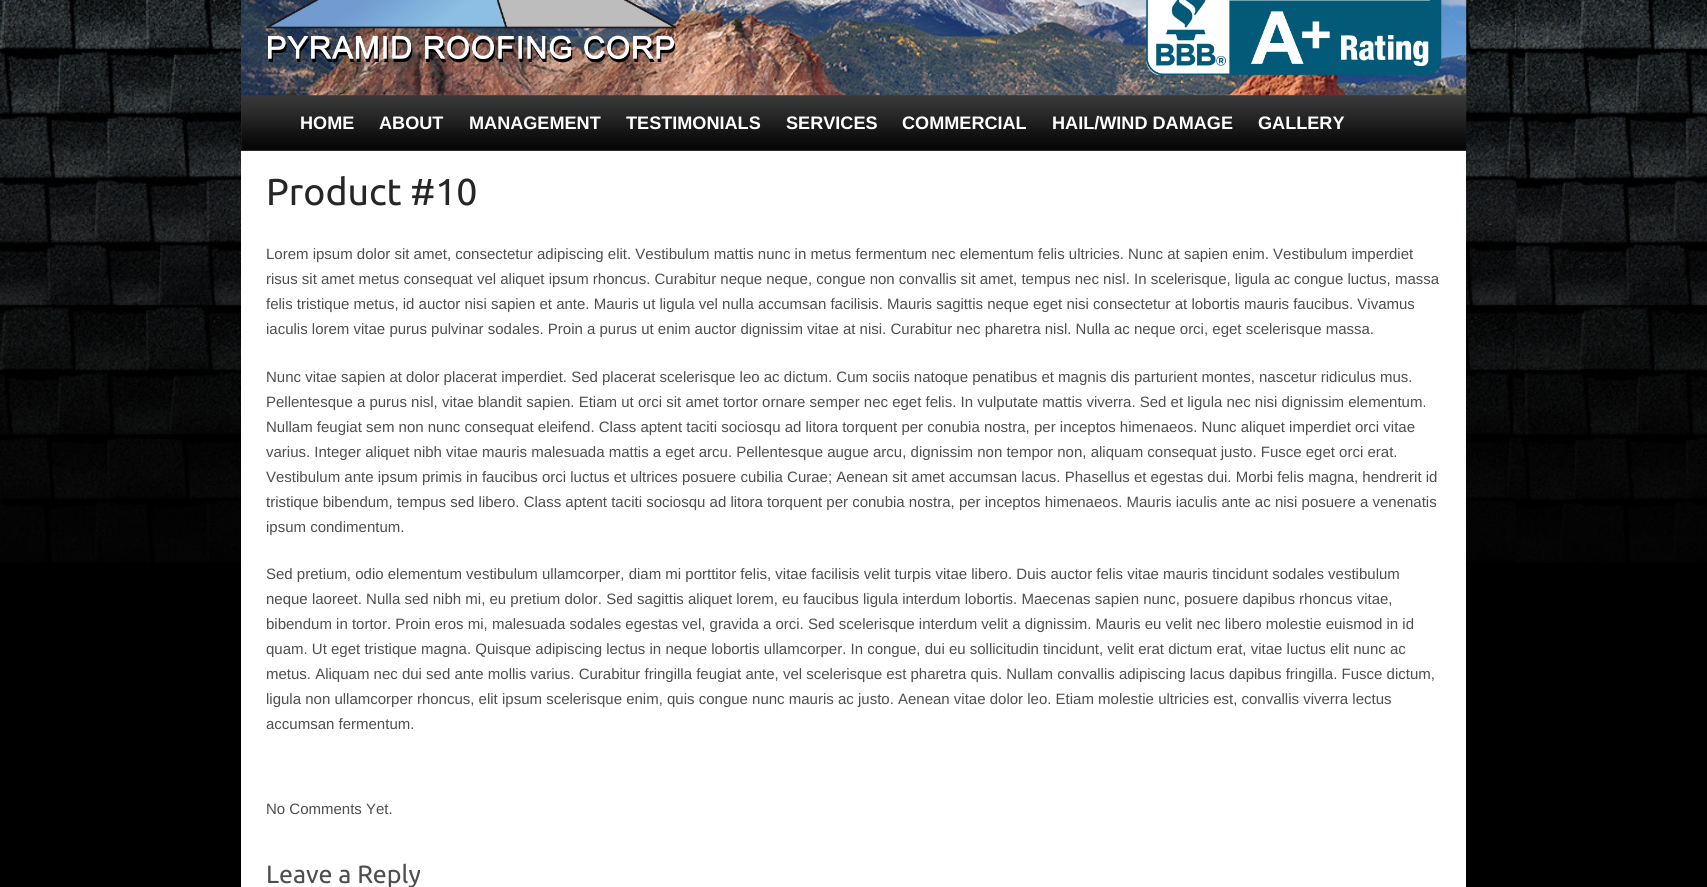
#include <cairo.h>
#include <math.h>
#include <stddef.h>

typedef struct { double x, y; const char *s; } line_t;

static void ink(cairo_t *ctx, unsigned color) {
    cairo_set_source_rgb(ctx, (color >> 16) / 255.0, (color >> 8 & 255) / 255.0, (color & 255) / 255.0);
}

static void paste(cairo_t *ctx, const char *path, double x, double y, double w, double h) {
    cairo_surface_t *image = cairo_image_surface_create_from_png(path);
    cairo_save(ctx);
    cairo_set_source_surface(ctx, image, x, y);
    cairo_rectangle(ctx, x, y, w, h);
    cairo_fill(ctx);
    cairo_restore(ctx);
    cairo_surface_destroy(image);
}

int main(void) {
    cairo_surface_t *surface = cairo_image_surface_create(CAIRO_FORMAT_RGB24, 1707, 887);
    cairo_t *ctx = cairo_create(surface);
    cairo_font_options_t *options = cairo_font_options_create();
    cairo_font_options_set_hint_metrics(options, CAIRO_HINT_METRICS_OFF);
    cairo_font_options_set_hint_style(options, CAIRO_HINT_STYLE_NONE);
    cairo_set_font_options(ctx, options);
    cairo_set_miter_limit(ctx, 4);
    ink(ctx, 0x000000);
    cairo_paint(ctx);
    paste(ctx, "media/1.png", 0, 0, 1707, 563);
    ink(ctx, 0x393939);
    cairo_rectangle(ctx, 241, 0, 1225, 151);
    cairo_fill(ctx);
    paste(ctx, "media/2.png", 241, 0, 1226, 101);
    paste(ctx, "media/3.png", 266, 0, 411, 63);
    paste(ctx, "media/4.png", 1146, 0, 296, 76);
    paste(ctx, "media/5.png", 241, 95, 1226, 56);
    cairo_select_font_face(ctx, "Liberation Sans", CAIRO_FONT_SLANT_NORMAL, CAIRO_FONT_WEIGHT_BOLD);
    cairo_set_font_size(ctx, 18.1);
    ink(ctx, 0xFFFFFF);
    {
        static const line_t items[] = {
            {300, 129, "HOME"},
            {379, 129, "ABOUT"},
            {469, 129, "MANAGEMENT"},
            {626, 129, "TESTIMONIALS"},
            {786, 129, "SERVICES"},
            {902, 129, "COMMERCIAL"},
            {1052, 129, "HAIL/WIND DAMAGE"},
            {1258, 129, "GALLERY"},
        };
        for (size_t i = 0; i < sizeof items / sizeof *items; i++) {
            cairo_move_to(ctx, items[i].x, items[i].y);
            cairo_show_text(ctx, items[i].s);
        }
    }
    cairo_rectangle(ctx, 241, 151, 1225, 736);
    cairo_fill(ctx);
    cairo_select_font_face(ctx, "Ubuntu", CAIRO_FONT_SLANT_NORMAL, CAIRO_FONT_WEIGHT_NORMAL);
    cairo_set_font_size(ctx, 37.5);
    ink(ctx, 0x262626);
    cairo_move_to(ctx, 266, 205);
    cairo_show_text(ctx, "Product #10");
    cairo_select_font_face(ctx, "Liberation Sans", CAIRO_FONT_SLANT_NORMAL, CAIRO_FONT_WEIGHT_NORMAL);
    cairo_set_font_size(ctx, 15);
    ink(ctx, 0x4E4D4F);
    {
        static const line_t items[] = {
            {266, 259, "Lorem ipsum dolor sit amet, consectetur adipiscing elit. Vestibulum mattis nunc in metus fermentum nec elementum felis ultricies. Nunc at sapien enim. Vestibulum imperdiet"},
            {266, 284, "risus sit amet metus consequat vel aliquet ipsum rhoncus. Curabitur neque neque, congue non convallis sit amet, tempus nec nisl. In scelerisque, ligula ac congue luctus, massa"},
            {266, 309, "felis tristique metus, id auctor nisi sapien et ante. Mauris ut ligula vel nulla accumsan facilisis. Mauris sagittis neque eget nisi consectetur at lobortis mauris faucibus. Vivamus"},
            {266, 334, "iaculis lorem vitae purus pulvinar sodales. Proin a purus ut enim auctor dignissim vitae at nisi. Curabitur nec pharetra nisl. Nulla ac neque orci, eget scelerisque massa."},
            {266, 382, "Nunc vitae sapien at dolor placerat imperdiet. Sed placerat scelerisque leo ac dictum. Cum sociis natoque penatibus et magnis dis parturient montes, nascetur ridiculus mus."},
            {266, 407, "Pellentesque a purus nisl, vitae blandit sapien. Etiam ut orci sit amet tortor ornare semper nec eget felis. In vulputate mattis viverra. Sed et ligula nec nisi dignissim elementum."},
            {266, 432, "Nullam feugiat sem non nunc consequat eleifend. Class aptent taciti sociosqu ad litora torquent per conubia nostra, per inceptos himenaeos. Nunc aliquet imperdiet orci vitae"},
            {266, 457, "varius. Integer aliquet nibh vitae mauris malesuada mattis a eget arcu. Pellentesque augue arcu, dignissim non tempor non, aliquam consequat justo. Fusce eget orci erat."},
            {266, 482, "Vestibulum ante ipsum primis in faucibus orci luctus et ultrices posuere cubilia Curae; Aenean sit amet accumsan lacus. Phasellus et egestas dui. Morbi felis magna, hendrerit id"},
            {266, 507, "tristique bibendum, tempus sed libero. Class aptent taciti sociosqu ad litora torquent per conubia nostra, per inceptos himenaeos. Mauris iaculis ante ac nisi posuere a venenatis"},
            {266, 532, "ipsum condimentum."},
            {266, 579, "Sed pretium, odio elementum vestibulum ullamcorper, diam mi porttitor felis, vitae facilisis velit turpis vitae libero. Duis auctor felis vitae mauris tincidunt sodales vestibulum"},
            {266, 604, "neque laoreet. Nulla sed nibh mi, eu pretium dolor. Sed sagittis aliquet lorem, eu faucibus ligula interdum lobortis. Maecenas sapien nunc, posuere dapibus rhoncus vitae,"},
            {266, 629, "bibendum in tortor. Proin eros mi, malesuada sodales egestas vel, gravida a orci. Sed scelerisque interdum velit a dignissim. Mauris eu velit nec libero molestie euismod in id"},
            {266, 654, "quam. Ut eget tristique magna. Quisque adipiscing lectus in neque lobortis ullamcorper. In congue, dui eu sollicitudin tincidunt, velit erat dictum erat, vitae luctus elit nunc ac"},
            {266, 679, "metus. Aliquam nec dui sed ante mollis varius. Curabitur fringilla feugiat ante, vel scelerisque est pharetra quis. Nullam convallis adipiscing lacus dapibus fringilla. Fusce dictum,"},
            {266, 704, "ligula non ullamcorper rhoncus, elit ipsum scelerisque enim, quis congue nunc mauris ac justo. Aenean vitae dolor leo. Etiam molestie ultricies est, convallis viverra lectus"},
            {266, 729, "accumsan fermentum."},
            {266, 814, "No Comments Yet."},
        };
        for (size_t i = 0; i < sizeof items / sizeof *items; i++) {
            cairo_move_to(ctx, items[i].x, items[i].y);
            cairo_show_text(ctx, items[i].s);
        }
    }
    cairo_select_font_face(ctx, "Ubuntu", CAIRO_FONT_SLANT_NORMAL, CAIRO_FONT_WEIGHT_NORMAL);
    cairo_set_font_size(ctx, 25);
    cairo_move_to(ctx, 266, 883);
    cairo_show_text(ctx, "Leave a Reply");
    cairo_surface_write_to_png(surface, "image.png");
    cairo_font_options_destroy(options);
    cairo_destroy(ctx);
    cairo_surface_destroy(surface);
    return 0;
}
